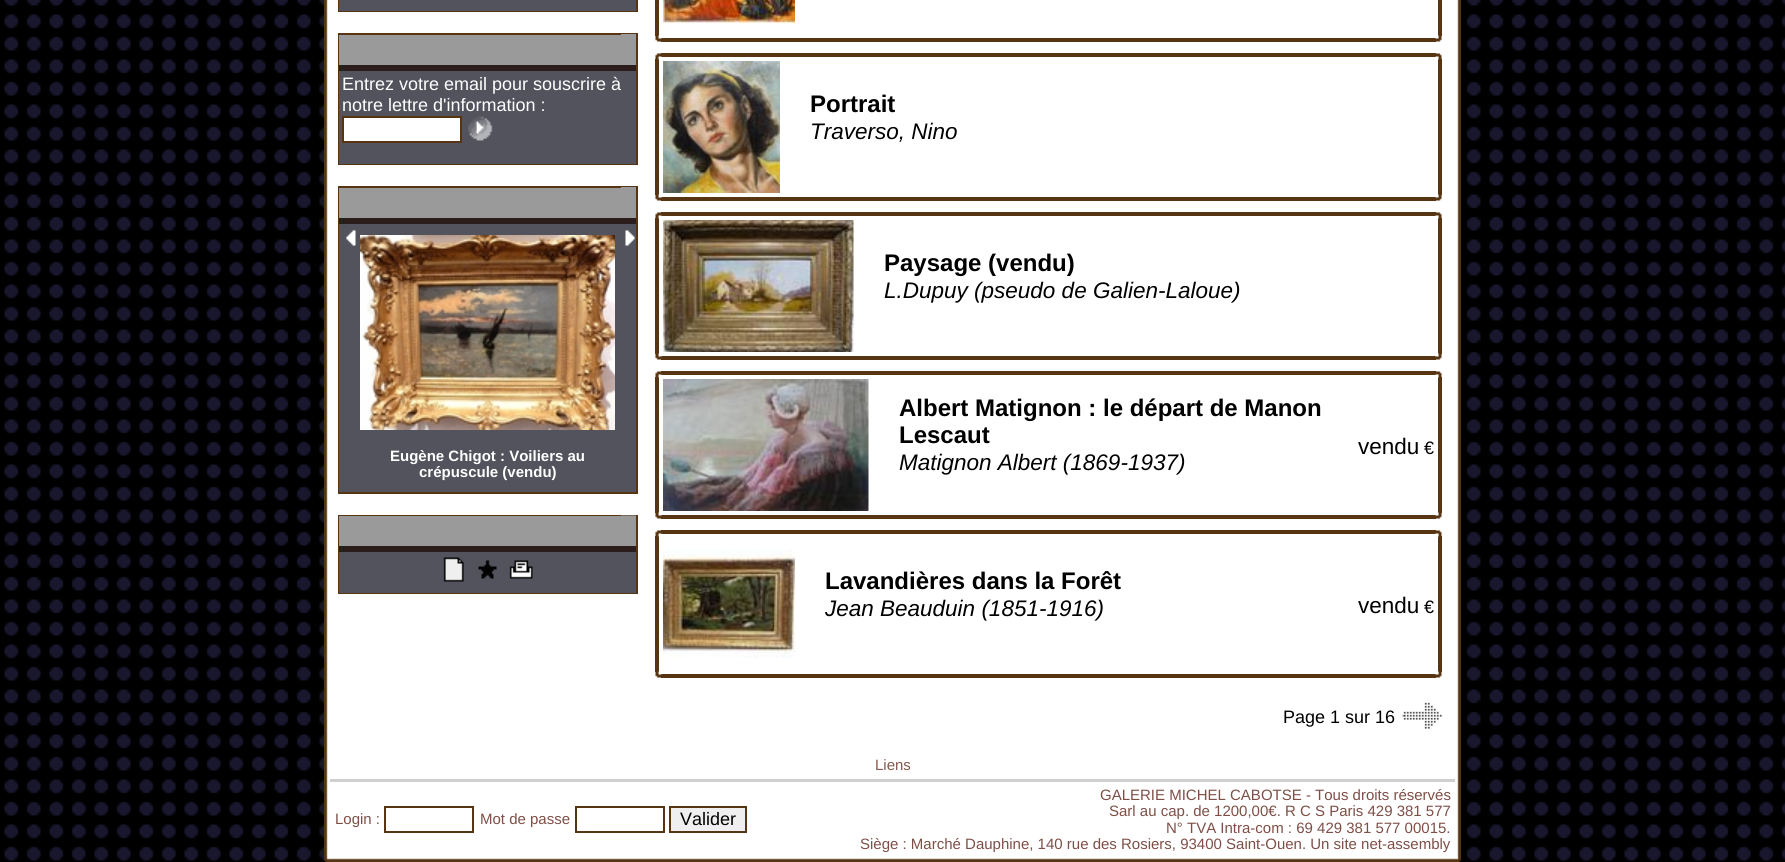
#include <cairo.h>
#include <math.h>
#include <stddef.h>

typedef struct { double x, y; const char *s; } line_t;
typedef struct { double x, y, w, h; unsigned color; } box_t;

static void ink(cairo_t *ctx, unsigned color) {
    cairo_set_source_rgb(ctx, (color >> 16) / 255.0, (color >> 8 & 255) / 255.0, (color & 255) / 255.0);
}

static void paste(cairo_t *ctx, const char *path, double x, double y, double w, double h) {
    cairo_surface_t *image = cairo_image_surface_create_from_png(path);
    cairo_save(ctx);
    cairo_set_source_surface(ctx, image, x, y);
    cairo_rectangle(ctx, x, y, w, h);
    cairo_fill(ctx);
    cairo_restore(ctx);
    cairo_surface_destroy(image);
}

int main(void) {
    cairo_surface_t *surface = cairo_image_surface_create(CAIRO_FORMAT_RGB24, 1785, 862);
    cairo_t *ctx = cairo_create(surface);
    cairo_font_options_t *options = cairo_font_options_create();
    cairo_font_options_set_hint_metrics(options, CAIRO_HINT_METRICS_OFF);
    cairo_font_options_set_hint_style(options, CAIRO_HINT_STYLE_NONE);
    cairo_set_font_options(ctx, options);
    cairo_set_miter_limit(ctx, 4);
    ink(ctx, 0xFFFFFF);
    cairo_paint(ctx);
    paste(ctx, "media/1.png", 0, 0, 1785, 862);
    paste(ctx, "media/2.png", 324, 0, 6, 856);
    ink(ctx, 0xFFFFFF);
    cairo_rectangle(ctx, 330, 0, 1125, 857);
    cairo_fill(ctx);
    cairo_rectangle(ctx, 339, -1, 298, 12);
    ink(ctx, 0x573513);
    cairo_stroke(ctx);
    ink(ctx, 0x52535C);
    cairo_rectangle(ctx, 339, 0, 297, 11);
    cairo_fill(ctx);
    cairo_rectangle(ctx, 339, 34, 298, 130);
    ink(ctx, 0x573513);
    cairo_stroke(ctx);
    {
        static const box_t items[] = {
            {339, 35, 297, 30, 0x9A9A9A},
            {621, 34, 15, 1, 0x9C9A9C},
            {339, 65, 297, 6, 0x2C1D1D},
            {339, 71, 297, 93, 0x52535C},
        };
        for (size_t i = 0; i < sizeof items / sizeof *items; i++) {
            ink(ctx, items[i].color);
            cairo_rectangle(ctx, items[i].x, items[i].y, items[i].w, items[i].h);
            cairo_fill(ctx);
        }
    }
    cairo_select_font_face(ctx, "Liberation Sans", CAIRO_FONT_SLANT_NORMAL, CAIRO_FONT_WEIGHT_NORMAL);
    cairo_set_font_size(ctx, 18);
    ink(ctx, 0xFFFFFF);
    cairo_move_to(ctx, 342, 90);
    cairo_show_text(ctx, "Entrez votre email pour souscrire à");
    cairo_move_to(ctx, 342, 111);
    cairo_show_text(ctx, "notre lettre d'information :");
    cairo_rectangle(ctx, 343, 117, 118, 25);
    cairo_fill_preserve(ctx);
    ink(ctx, 0x573513);
    cairo_stroke(ctx);
    paste(ctx, "media/3.png", 468, 116, 25, 25);
    cairo_rectangle(ctx, 339, 187, 298, 306);
    cairo_stroke(ctx);
    {
        static const box_t items[] = {
            {339, 188, 297, 30, 0x9A9A9A},
            {621, 187, 15, 1, 0x9C9A9C},
            {339, 218, 297, 6, 0x2C1D1D},
            {339, 224, 297, 268, 0x52535C},
        };
        for (size_t i = 0; i < sizeof items / sizeof *items; i++) {
            ink(ctx, items[i].color);
            cairo_rectangle(ctx, items[i].x, items[i].y, items[i].w, items[i].h);
            cairo_fill(ctx);
        }
    }
    paste(ctx, "media/4.png", 346, 230, 10, 16);
    paste(ctx, "media/5.png", 625, 230, 10, 16);
    paste(ctx, "media/6.png", 360, 235, 255, 195);
    cairo_select_font_face(ctx, "Liberation Sans", CAIRO_FONT_SLANT_NORMAL, CAIRO_FONT_WEIGHT_BOLD);
    cairo_set_font_size(ctx, 15);
    ink(ctx, 0xFFFFFF);
    cairo_move_to(ctx, 390, 461);
    cairo_show_text(ctx, "Eugène Chigot : Voiliers au");
    cairo_move_to(ctx, 419, 477);
    cairo_show_text(ctx, "crépuscule (vendu)");
    cairo_rectangle(ctx, 339, 516, 298, 77);
    ink(ctx, 0x573513);
    cairo_stroke(ctx);
    {
        static const box_t items[] = {
            {339, 516, 297, 30, 0x9A9A9A},
            {621, 515, 15, 1, 0x796757},
            {339, 546, 297, 6, 0x2C1D1D},
            {339, 552, 297, 41, 0x52535C},
        };
        for (size_t i = 0; i < sizeof items / sizeof *items; i++) {
            ink(ctx, items[i].color);
            cairo_rectangle(ctx, items[i].x, items[i].y, items[i].w, items[i].h);
            cairo_fill(ctx);
        }
    }
    paste(ctx, "media/7.png", 443, 557, 21, 25);
    paste(ctx, "media/8.png", 478, 560, 19, 19);
    paste(ctx, "media/9.png", 509, 560, 24, 19);
    ink(ctx, 0x573513);
    cairo_rectangle(ctx, 655, 0, 4, 36);
    cairo_fill(ctx);
    paste(ctx, "media/10.png", 663, 0, 132, 24);
    cairo_rectangle(ctx, 1438, 0, 4, 36);
    cairo_fill(ctx);
    cairo_rectangle(ctx, 661, 38, 775, 4);
    cairo_fill(ctx);
    paste(ctx, "media/11.png", 655, 35, 7, 7);
    paste(ctx, "media/12.png", 1435, 35, 7, 7);
    cairo_rectangle(ctx, 661, 53, 775, 4);
    cairo_fill(ctx);
    cairo_rectangle(ctx, 655, 59, 4, 136);
    cairo_fill(ctx);
    paste(ctx, "media/13.png", 655, 53, 7, 7);
    cairo_rectangle(ctx, 1438, 59, 4, 136);
    cairo_fill(ctx);
    paste(ctx, "media/14.png", 1435, 53, 7, 7);
    paste(ctx, "media/15.png", 663, 61, 117, 132);
    cairo_set_font_size(ctx, 24);
    ink(ctx, 0x000000);
    cairo_move_to(ctx, 810, 112);
    cairo_show_text(ctx, "Portrait");
    cairo_select_font_face(ctx, "Liberation Sans", CAIRO_FONT_SLANT_ITALIC, CAIRO_FONT_WEIGHT_NORMAL);
    cairo_set_font_size(ctx, 22.5);
    cairo_move_to(ctx, 810, 139);
    cairo_show_text(ctx, "Traverso, Nino");
    ink(ctx, 0x573513);
    cairo_rectangle(ctx, 661, 197, 775, 4);
    cairo_fill(ctx);
    paste(ctx, "media/11.png", 655, 194, 7, 7);
    paste(ctx, "media/12.png", 1435, 194, 7, 7);
    cairo_rectangle(ctx, 661, 212, 775, 4);
    cairo_fill(ctx);
    cairo_rectangle(ctx, 655, 218, 4, 136);
    cairo_fill(ctx);
    paste(ctx, "media/13.png", 655, 212, 7, 7);
    cairo_rectangle(ctx, 1438, 218, 4, 136);
    cairo_fill(ctx);
    paste(ctx, "media/14.png", 1435, 212, 7, 7);
    paste(ctx, "media/16.png", 663, 220, 191, 132);
    cairo_select_font_face(ctx, "Liberation Sans", CAIRO_FONT_SLANT_NORMAL, CAIRO_FONT_WEIGHT_BOLD);
    cairo_set_font_size(ctx, 24);
    ink(ctx, 0x000000);
    cairo_move_to(ctx, 884, 271);
    cairo_show_text(ctx, "Paysage (vendu)");
    cairo_select_font_face(ctx, "Liberation Sans", CAIRO_FONT_SLANT_ITALIC, CAIRO_FONT_WEIGHT_NORMAL);
    cairo_set_font_size(ctx, 22.5);
    cairo_move_to(ctx, 884, 298);
    cairo_show_text(ctx, "L.Dupuy (pseudo de Galien-Laloue)");
    ink(ctx, 0x573513);
    cairo_rectangle(ctx, 661, 356, 775, 4);
    cairo_fill(ctx);
    paste(ctx, "media/11.png", 655, 353, 7, 7);
    paste(ctx, "media/12.png", 1435, 353, 7, 7);
    cairo_rectangle(ctx, 661, 371, 775, 4);
    cairo_fill(ctx);
    cairo_rectangle(ctx, 655, 377, 4, 136);
    cairo_fill(ctx);
    paste(ctx, "media/13.png", 655, 371, 7, 7);
    cairo_rectangle(ctx, 1438, 377, 4, 136);
    cairo_fill(ctx);
    paste(ctx, "media/14.png", 1435, 371, 7, 7);
    paste(ctx, "media/17.png", 663, 379, 206, 132);
    cairo_select_font_face(ctx, "Liberation Sans", CAIRO_FONT_SLANT_NORMAL, CAIRO_FONT_WEIGHT_BOLD);
    cairo_set_font_size(ctx, 24);
    ink(ctx, 0x000000);
    cairo_move_to(ctx, 899, 416);
    cairo_show_text(ctx, "Albert Matignon : le départ de Manon");
    cairo_move_to(ctx, 899, 443);
    cairo_show_text(ctx, "Lescaut");
    cairo_select_font_face(ctx, "Liberation Sans", CAIRO_FONT_SLANT_ITALIC, CAIRO_FONT_WEIGHT_NORMAL);
    cairo_set_font_size(ctx, 22.5);
    cairo_move_to(ctx, 899, 470);
    cairo_show_text(ctx, "Matignon Albert (1869-1937)");
    cairo_select_font_face(ctx, "Liberation Sans", CAIRO_FONT_SLANT_NORMAL, CAIRO_FONT_WEIGHT_NORMAL);
    cairo_move_to(ctx, 1358, 454);
    cairo_show_text(ctx, "vendu");
    cairo_set_font_size(ctx, 18);
    cairo_move_to(ctx, 1424, 454);
    cairo_show_text(ctx, "€");
    ink(ctx, 0x573513);
    cairo_rectangle(ctx, 661, 515, 775, 4);
    cairo_fill(ctx);
    paste(ctx, "media/11.png", 655, 512, 7, 7);
    paste(ctx, "media/12.png", 1435, 512, 7, 7);
    cairo_rectangle(ctx, 661, 530, 775, 4);
    cairo_fill(ctx);
    cairo_rectangle(ctx, 655, 536, 4, 136);
    cairo_fill(ctx);
    paste(ctx, "media/13.png", 655, 530, 7, 7);
    cairo_rectangle(ctx, 1438, 536, 4, 136);
    cairo_fill(ctx);
    paste(ctx, "media/14.png", 1435, 530, 7, 7);
    paste(ctx, "media/18.png", 663, 550, 132, 108);
    cairo_select_font_face(ctx, "Liberation Sans", CAIRO_FONT_SLANT_NORMAL, CAIRO_FONT_WEIGHT_BOLD);
    cairo_set_font_size(ctx, 24);
    ink(ctx, 0x000000);
    cairo_move_to(ctx, 825, 589);
    cairo_show_text(ctx, "Lavandières dans la Forêt");
    cairo_select_font_face(ctx, "Liberation Sans", CAIRO_FONT_SLANT_ITALIC, CAIRO_FONT_WEIGHT_NORMAL);
    cairo_set_font_size(ctx, 22.5);
    cairo_move_to(ctx, 825, 616);
    cairo_show_text(ctx, "Jean Beauduin (1851-1916)");
    cairo_select_font_face(ctx, "Liberation Sans", CAIRO_FONT_SLANT_NORMAL, CAIRO_FONT_WEIGHT_NORMAL);
    cairo_move_to(ctx, 1358, 613);
    cairo_show_text(ctx, "vendu");
    cairo_set_font_size(ctx, 18);
    cairo_move_to(ctx, 1424, 613);
    cairo_show_text(ctx, "€");
    ink(ctx, 0x573513);
    cairo_rectangle(ctx, 661, 674, 775, 4);
    cairo_fill(ctx);
    paste(ctx, "media/11.png", 655, 671, 7, 7);
    paste(ctx, "media/12.png", 1435, 671, 7, 7);
    ink(ctx, 0x000000);
    cairo_move_to(ctx, 1283, 723);
    cairo_show_text(ctx, "Page 1 sur 16");
    paste(ctx, "media/19.png", 1402, 702, 40, 27);
    cairo_set_font_size(ctx, 15);
    ink(ctx, 0x835B50);
    cairo_move_to(ctx, 875, 770);
    cairo_show_text(ctx, "Liens");
    ink(ctx, 0xCFCFCF);
    cairo_rectangle(ctx, 330, 779, 1125, 3);
    cairo_fill(ctx);
    ink(ctx, 0x7E4F47);
    cairo_move_to(ctx, 335, 824);
    cairo_show_text(ctx, "Login :");
    cairo_rectangle(ctx, 385, 807, 88, 25);
    ink(ctx, 0x573513);
    cairo_stroke(ctx);
    ink(ctx, 0x7E4F47);
    cairo_move_to(ctx, 480, 824);
    cairo_show_text(ctx, "Mot de passe");
    cairo_rectangle(ctx, 576, 807, 88, 25);
    ink(ctx, 0x573513);
    cairo_stroke(ctx);
    ink(ctx, 0xEFEFEF);
    cairo_rectangle(ctx, 670, 807, 76, 25);
    cairo_fill_preserve(ctx);
    ink(ctx, 0x573513);
    cairo_stroke(ctx);
    cairo_set_font_size(ctx, 18);
    ink(ctx, 0x000000);
    cairo_move_to(ctx, 680, 825);
    cairo_show_text(ctx, "Valider");
    cairo_set_font_size(ctx, 15);
    ink(ctx, 0x7E4F47);
    {
        static const line_t items[] = {
            {1100, 800, "GALERIE MICHEL CABOTSE - Tous droits réservés"},
            {1109, 816, "Sarl au cap. de 1200,00€. R C S Paris 429 381 577"},
            {1166, 833, "N° TVA Intra-com : 69 429 381 577 00015."},
            {860, 849, "Siège : Marché Dauphine, 140 rue des Rosiers, 93400 Saint-Ouen. Un site net-assembly"},
        };
        for (size_t i = 0; i < sizeof items / sizeof *items; i++) {
            cairo_move_to(ctx, items[i].x, items[i].y);
            cairo_show_text(ctx, items[i].s);
        }
    }
    paste(ctx, "media/20.png", 1455, 0, 6, 856);
    paste(ctx, "media/21.png", 324, 856, 6, 6);
    paste(ctx, "media/22.png", 330, 857, 1125, 5);
    paste(ctx, "media/23.png", 1455, 856, 6, 6);
    cairo_surface_write_to_png(surface, "image.png");
    cairo_font_options_destroy(options);
    cairo_destroy(ctx);
    cairo_surface_destroy(surface);
    return 0;
}
